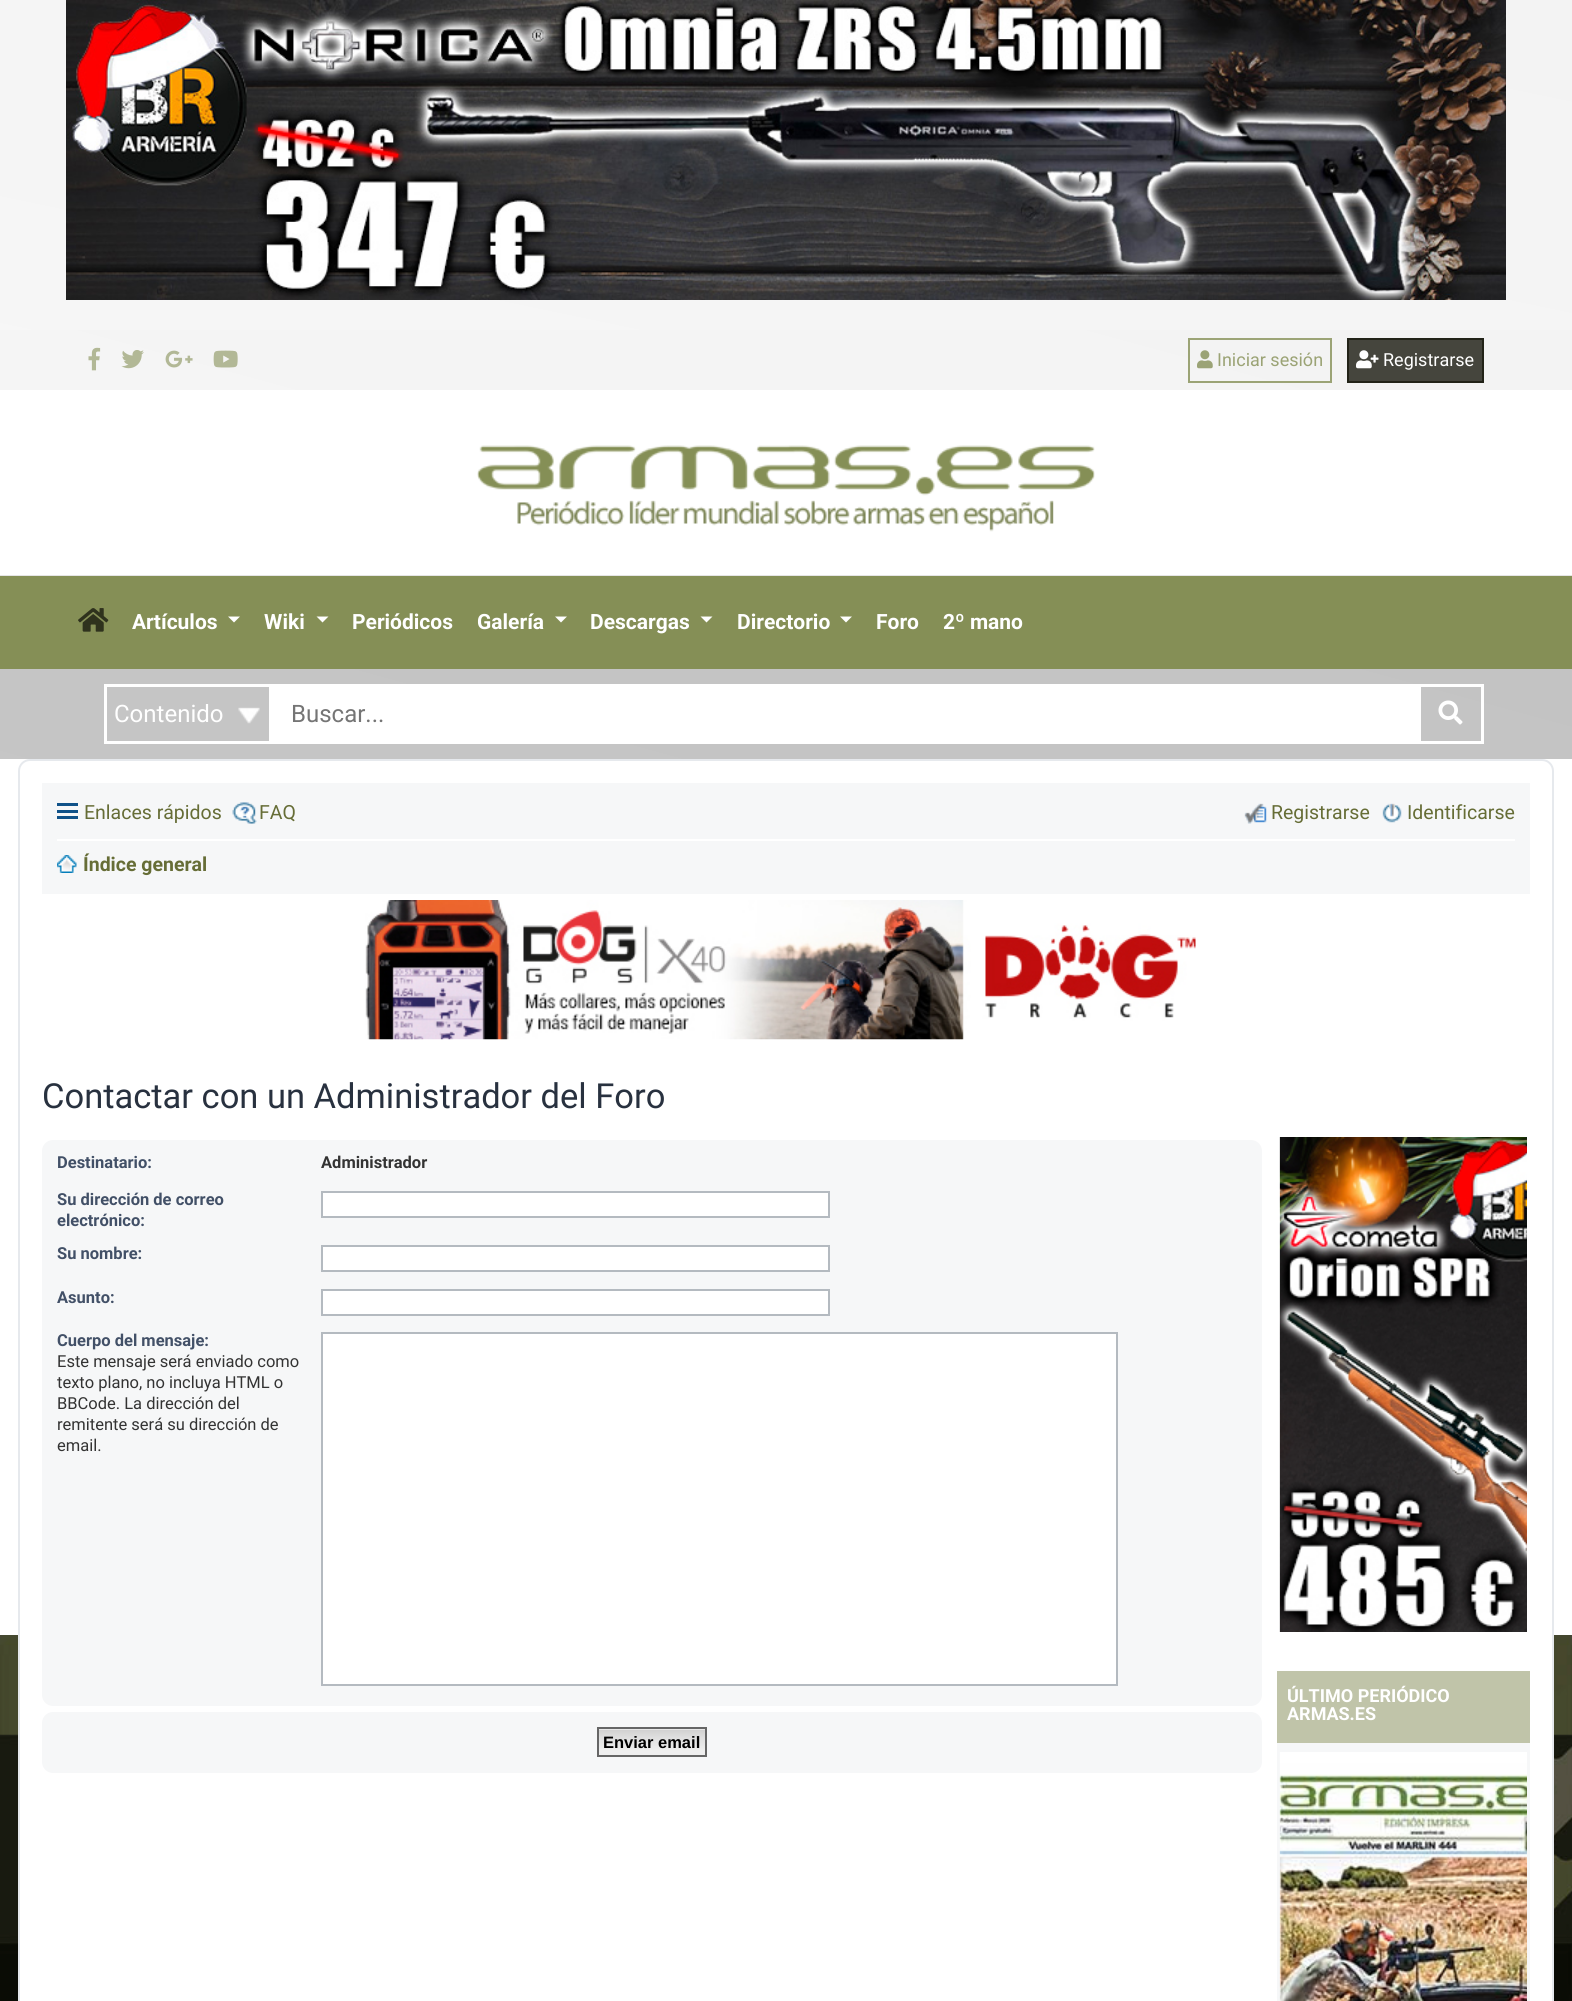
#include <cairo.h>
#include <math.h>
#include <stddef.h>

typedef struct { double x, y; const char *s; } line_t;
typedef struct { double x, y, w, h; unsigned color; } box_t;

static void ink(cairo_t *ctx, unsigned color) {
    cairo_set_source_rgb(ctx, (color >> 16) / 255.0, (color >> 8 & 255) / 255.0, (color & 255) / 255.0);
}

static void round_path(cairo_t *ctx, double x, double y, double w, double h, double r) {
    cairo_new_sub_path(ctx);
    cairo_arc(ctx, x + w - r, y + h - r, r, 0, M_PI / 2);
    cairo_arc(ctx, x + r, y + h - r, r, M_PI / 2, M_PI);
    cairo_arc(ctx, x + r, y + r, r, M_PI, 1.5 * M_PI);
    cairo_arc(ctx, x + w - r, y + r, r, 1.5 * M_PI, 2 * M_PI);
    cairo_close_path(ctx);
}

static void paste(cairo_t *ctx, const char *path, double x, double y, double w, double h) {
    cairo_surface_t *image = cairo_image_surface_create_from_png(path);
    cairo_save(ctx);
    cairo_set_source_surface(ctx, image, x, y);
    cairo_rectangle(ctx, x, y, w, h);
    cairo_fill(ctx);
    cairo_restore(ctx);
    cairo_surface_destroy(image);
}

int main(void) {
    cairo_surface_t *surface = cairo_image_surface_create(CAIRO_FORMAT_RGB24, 1572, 2001);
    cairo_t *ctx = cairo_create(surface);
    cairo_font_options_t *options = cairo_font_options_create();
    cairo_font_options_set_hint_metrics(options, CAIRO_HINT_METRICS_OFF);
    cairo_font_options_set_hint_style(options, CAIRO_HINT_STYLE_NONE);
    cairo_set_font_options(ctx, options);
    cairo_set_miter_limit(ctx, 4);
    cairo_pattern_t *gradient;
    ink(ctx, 0xFFFFFF);
    cairo_paint(ctx);
    paste(ctx, "media/1.png", 0, 1635, 1572, 366);
    gradient = cairo_pattern_create_linear(720, 481, 852, -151);
    cairo_pattern_add_color_stop_rgba(gradient, 0, 0.969, 0.969, 0.969, 1);
    cairo_pattern_add_color_stop_rgba(gradient, 0.02, 0.965, 0.965, 0.965, 1);
    cairo_pattern_add_color_stop_rgba(gradient, 1, 0.953, 0.953, 0.953, 1);
    cairo_set_source(ctx, gradient);
    cairo_pattern_destroy(gradient);
    cairo_rectangle(ctx, 0, 0, 1572, 330);
    cairo_fill(ctx);
    paste(ctx, "media/2.png", 66, 0, 1440, 300);
    gradient = cairo_pattern_create_linear(677, 944, 895, 145);
    cairo_pattern_add_color_stop_rgba(gradient, 0, 0.969, 0.969, 0.969, 1);
    cairo_pattern_add_color_stop_rgba(gradient, 0.02, 0.965, 0.965, 0.965, 1);
    cairo_pattern_add_color_stop_rgba(gradient, 1, 0.953, 0.953, 0.953, 1);
    cairo_set_source(ctx, gradient);
    cairo_pattern_destroy(gradient);
    cairo_rectangle(ctx, 0, 330, 1572, 60);
    cairo_fill(ctx);
    gradient = cairo_pattern_create_linear(677, 944, 895, 145);
    cairo_pattern_add_color_stop_rgba(gradient, 0, 0.776, 0.776, 0.776, 1);
    cairo_pattern_add_color_stop_rgba(gradient, 0.02, 0.773, 0.773, 0.773, 1);
    cairo_pattern_add_color_stop_rgba(gradient, 1, 0.761, 0.761, 0.761, 1);
    cairo_set_source(ctx, gradient);
    cairo_pattern_destroy(gradient);
    cairo_rectangle(ctx, 0, 669, 1572, 90);
    cairo_fill(ctx);
    paste(ctx, "media/3.png", 88, 347, 13, 24);
    paste(ctx, "media/4.png", 121, 350, 23, 19);
    paste(ctx, "media/5.png", 165, 350, 28, 18);
    paste(ctx, "media/6.png", 213, 350, 25, 18);
    cairo_rectangle(ctx, 1189, 339, 142, 43);
    ink(ctx, 0x9BA375);
    cairo_stroke(ctx);
    paste(ctx, "media/7.png", 1197, 350, 16, 19);
    cairo_select_font_face(ctx, "Roboto", CAIRO_FONT_SLANT_NORMAL, CAIRO_FONT_WEIGHT_NORMAL);
    cairo_set_font_size(ctx, 18);
    cairo_move_to(ctx, 1217, 366);
    cairo_show_text(ctx, "Iniciar sesión");
    ink(ctx, 0x45453D);
    cairo_rectangle(ctx, 1348, 339, 135, 43);
    cairo_fill_preserve(ctx);
    ink(ctx, 0x222318);
    cairo_stroke(ctx);
    paste(ctx, "media/8.png", 1356, 350, 23, 19);
    ink(ctx, 0xFFFFFF);
    cairo_move_to(ctx, 1383, 366);
    cairo_show_text(ctx, "Registrarse");
    ink(ctx, 0xE5E5E5);
    cairo_rectangle(ctx, 0, 575, 1572, 1);
    cairo_fill(ctx);
    paste(ctx, "media/9.png", 477, 445, 618, 87);
    ink(ctx, 0x858F56);
    cairo_rectangle(ctx, 0, 576, 1572, 93);
    cairo_fill(ctx);
    paste(ctx, "media/10.png", 78, 608, 31, 24);
    cairo_select_font_face(ctx, "Roboto", CAIRO_FONT_SLANT_NORMAL, CAIRO_FONT_WEIGHT_BOLD);
    cairo_set_font_size(ctx, 21);
    ink(ctx, 0xFFFFFF);
    cairo_move_to(ctx, 132, 629);
    cairo_show_text(ctx, "Artículos");
    cairo_new_path(ctx);
    cairo_move_to(ctx, 228, 616.5);
    cairo_line_to(ctx, 240, 616.5);
    cairo_line_to(ctx, 234, 622.5);
    cairo_close_path(ctx);
    cairo_fill(ctx);
    cairo_move_to(ctx, 264, 629);
    cairo_show_text(ctx, "Wiki");
    cairo_new_path(ctx);
    cairo_move_to(ctx, 316.5, 616.5);
    cairo_line_to(ctx, 328.5, 616.5);
    cairo_line_to(ctx, 322.5, 622.5);
    cairo_close_path(ctx);
    cairo_fill(ctx);
    cairo_move_to(ctx, 352, 629);
    cairo_show_text(ctx, "Periódicos");
    cairo_move_to(ctx, 477, 629);
    cairo_show_text(ctx, "Galería");
    cairo_new_path(ctx);
    cairo_move_to(ctx, 555, 616.5);
    cairo_line_to(ctx, 567, 616.5);
    cairo_line_to(ctx, 561, 622.5);
    cairo_close_path(ctx);
    cairo_fill(ctx);
    cairo_move_to(ctx, 590, 629);
    cairo_show_text(ctx, "Descargas");
    cairo_new_path(ctx);
    cairo_move_to(ctx, 700.5, 616.5);
    cairo_line_to(ctx, 712.5, 616.5);
    cairo_line_to(ctx, 706.5, 622.5);
    cairo_close_path(ctx);
    cairo_fill(ctx);
    cairo_move_to(ctx, 737, 629);
    cairo_show_text(ctx, "Directorio");
    cairo_new_path(ctx);
    cairo_move_to(ctx, 840, 616.5);
    cairo_line_to(ctx, 852, 616.5);
    cairo_line_to(ctx, 846, 622.5);
    cairo_close_path(ctx);
    cairo_fill(ctx);
    cairo_move_to(ctx, 876, 629);
    cairo_show_text(ctx, "Foro");
    cairo_move_to(ctx, 943, 629);
    cairo_show_text(ctx, "2º mano");
    paste(ctx, "media/11.png", 238, 707, 22, 17);
    cairo_rectangle(ctx, 105.5, 685.5, 165, 57);
    cairo_set_line_width(ctx, 3);
    cairo_stroke(ctx);
    cairo_select_font_face(ctx, "Roboto", CAIRO_FONT_SLANT_NORMAL, CAIRO_FONT_WEIGHT_NORMAL);
    cairo_set_font_size(ctx, 24);
    cairo_move_to(ctx, 114, 722);
    cairo_show_text(ctx, "Contenido");
    {
        static const box_t items[] = {
            {273, 687, 1145, 54, 0xFFFFFF},
            {270, 684, 1149, 3, 0xFFFFFF},
            {270, 741, 1149, 3, 0xFFFFFF},
            {272, 684, 1, 60, 0xFFFFFF},
        };
        for (size_t i = 0; i < sizeof items / sizeof *items; i++) {
            ink(ctx, items[i].color);
            cairo_rectangle(ctx, items[i].x, items[i].y, items[i].w, items[i].h);
            cairo_fill(ctx);
        }
    }
    ink(ctx, 0x757575);
    cairo_move_to(ctx, 291, 722);
    cairo_show_text(ctx, "Buscar...");
    cairo_rectangle(ctx, 1419.5, 685.5, 63, 57);
    ink(ctx, 0xFFFFFF);
    cairo_stroke(ctx);
    paste(ctx, "media/12.png", 1438, 700, 25, 25);
    round_path(ctx, 19, 760, 1534, 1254, 11);
    cairo_fill_preserve(ctx);
    ink(ctx, 0xE6E9ED);
    cairo_set_line_width(ctx, 2);
    cairo_stroke(ctx);
    {
        static const box_t items[] = {
            {42, 783, 1488, 111, 0xF6F7F8},
            {57, 803, 21, 3, 0x105289},
            {57, 810, 21, 3, 0x105289},
            {57, 816, 21, 3, 0x105289},
        };
        for (size_t i = 0; i < sizeof items / sizeof *items; i++) {
            ink(ctx, items[i].color);
            cairo_rectangle(ctx, items[i].x, items[i].y, items[i].w, items[i].h);
            cairo_fill(ctx);
        }
    }
    cairo_set_font_size(ctx, 19.5);
    ink(ctx, 0x666D36);
    cairo_move_to(ctx, 84, 819);
    cairo_show_text(ctx, "Enlaces rápidos");
    paste(ctx, "media/13.png", 232, 802, 25, 22);
    cairo_move_to(ctx, 259, 819);
    cairo_show_text(ctx, "FAQ");
    paste(ctx, "media/14.png", 1244, 803, 23, 21);
    cairo_move_to(ctx, 1271, 819);
    cairo_show_text(ctx, "Registrarse");
    paste(ctx, "media/15.png", 1382, 803, 20, 20);
    cairo_move_to(ctx, 1407, 819);
    cairo_show_text(ctx, "Identificarse");
    ink(ctx, 0xFFFFFF);
    cairo_rectangle(ctx, 57, 839, 1458, 2);
    cairo_fill(ctx);
    paste(ctx, "media/16.png", 57, 855, 20, 18);
    cairo_select_font_face(ctx, "Roboto", CAIRO_FONT_SLANT_NORMAL, CAIRO_FONT_WEIGHT_BOLD);
    ink(ctx, 0x666D36);
    cairo_move_to(ctx, 83, 871);
    cairo_show_text(ctx, "Índice general");
    paste(ctx, "media/17.png", 365, 900, 831, 140);
    cairo_select_font_face(ctx, "Roboto", CAIRO_FONT_SLANT_NORMAL, CAIRO_FONT_WEIGHT_NORMAL);
    cairo_set_font_size(ctx, 34.5);
    ink(ctx, 0x28313F);
    cairo_move_to(ctx, 42, 1108);
    cairo_show_text(ctx, "Contactar con un Administrador del Foro");
    ink(ctx, 0xF6F7F8);
    round_path(ctx, 42, 1140, 1220, 566, 11);
    cairo_fill(ctx);
    cairo_select_font_face(ctx, "Roboto", CAIRO_FONT_SLANT_NORMAL, CAIRO_FONT_WEIGHT_BOLD);
    cairo_set_font_size(ctx, 16.5);
    ink(ctx, 0x425067);
    cairo_move_to(ctx, 57, 1168);
    cairo_show_text(ctx, "Destinatario:");
    ink(ctx, 0x333333);
    cairo_move_to(ctx, 321, 1168);
    cairo_show_text(ctx, "Administrador");
    ink(ctx, 0x425067);
    cairo_move_to(ctx, 57, 1205);
    cairo_show_text(ctx, "Su dirección de correo");
    cairo_move_to(ctx, 57, 1226);
    cairo_show_text(ctx, "electrónico:");
    ink(ctx, 0xFFFFFF);
    cairo_rectangle(ctx, 322, 1192, 507, 25);
    cairo_fill_preserve(ctx);
    ink(ctx, 0xB4BAC0);
    cairo_stroke(ctx);
    ink(ctx, 0x425067);
    cairo_move_to(ctx, 57, 1259);
    cairo_show_text(ctx, "Su nombre:");
    ink(ctx, 0xFFFFFF);
    cairo_rectangle(ctx, 322, 1246, 507, 25);
    cairo_fill_preserve(ctx);
    ink(ctx, 0xB4BAC0);
    cairo_stroke(ctx);
    ink(ctx, 0x425067);
    cairo_move_to(ctx, 57, 1303);
    cairo_show_text(ctx, "Asunto:");
    ink(ctx, 0xFFFFFF);
    cairo_rectangle(ctx, 322, 1290, 507, 25);
    cairo_fill_preserve(ctx);
    ink(ctx, 0xB4BAC0);
    cairo_stroke(ctx);
    ink(ctx, 0x425067);
    cairo_move_to(ctx, 57, 1346);
    cairo_show_text(ctx, "Cuerpo del mensaje:");
    cairo_select_font_face(ctx, "Roboto", CAIRO_FONT_SLANT_NORMAL, CAIRO_FONT_WEIGHT_NORMAL);
    ink(ctx, 0x333333);
    {
        static const line_t items[] = {
            {57, 1367, "Este mensaje será enviado como"},
            {57, 1388, "texto plano, no incluya HTML o"},
            {57, 1409, "BBCode. La dirección del"},
            {57, 1430, "remitente será su dirección de"},
            {57, 1451, "email."},
        };
        for (size_t i = 0; i < sizeof items / sizeof *items; i++) {
            cairo_move_to(ctx, items[i].x, items[i].y);
            cairo_show_text(ctx, items[i].s);
        }
    }
    ink(ctx, 0xFFFFFF);
    cairo_rectangle(ctx, 322, 1333, 795, 352);
    cairo_fill_preserve(ctx);
    ink(ctx, 0xB4BAC0);
    cairo_stroke(ctx);
    ink(ctx, 0xF6F7F8);
    round_path(ctx, 42, 1712, 1220, 61, 11);
    cairo_fill(ctx);
    paste(ctx, "media/18.png", 599, 1729, 106, 26);
    cairo_rectangle(ctx, 598, 1728, 108, 28);
    ink(ctx, 0x666666);
    cairo_stroke(ctx);
    cairo_select_font_face(ctx, "Liberation Sans", CAIRO_FONT_SLANT_NORMAL, CAIRO_FONT_WEIGHT_BOLD);
    ink(ctx, 0x000000);
    cairo_move_to(ctx, 603, 1748);
    cairo_show_text(ctx, "Enviar email");
    paste(ctx, "media/19.png", 1279, 1137, 248, 495);
    ink(ctx, 0xC0C4A9);
    cairo_rectangle(ctx, 1277, 1671, 253, 72);
    cairo_fill(ctx);
    cairo_select_font_face(ctx, "Roboto", CAIRO_FONT_SLANT_NORMAL, CAIRO_FONT_WEIGHT_BOLD);
    cairo_set_font_size(ctx, 18);
    ink(ctx, 0xFFFFFF);
    cairo_move_to(ctx, 1287, 1702);
    cairo_show_text(ctx, "ÚLTIMO PERIÓDICO");
    cairo_move_to(ctx, 1287, 1720);
    cairo_show_text(ctx, "ARMAS.ES");
    ink(ctx, 0xF6F7F8);
    cairo_rectangle(ctx, 1277, 1743, 253, 258);
    cairo_fill(ctx);
    paste(ctx, "media/20.png", 1279, 1752, 248, 249);
    cairo_surface_write_to_png(surface, "image.png");
    cairo_font_options_destroy(options);
    cairo_destroy(ctx);
    cairo_surface_destroy(surface);
    return 0;
}
